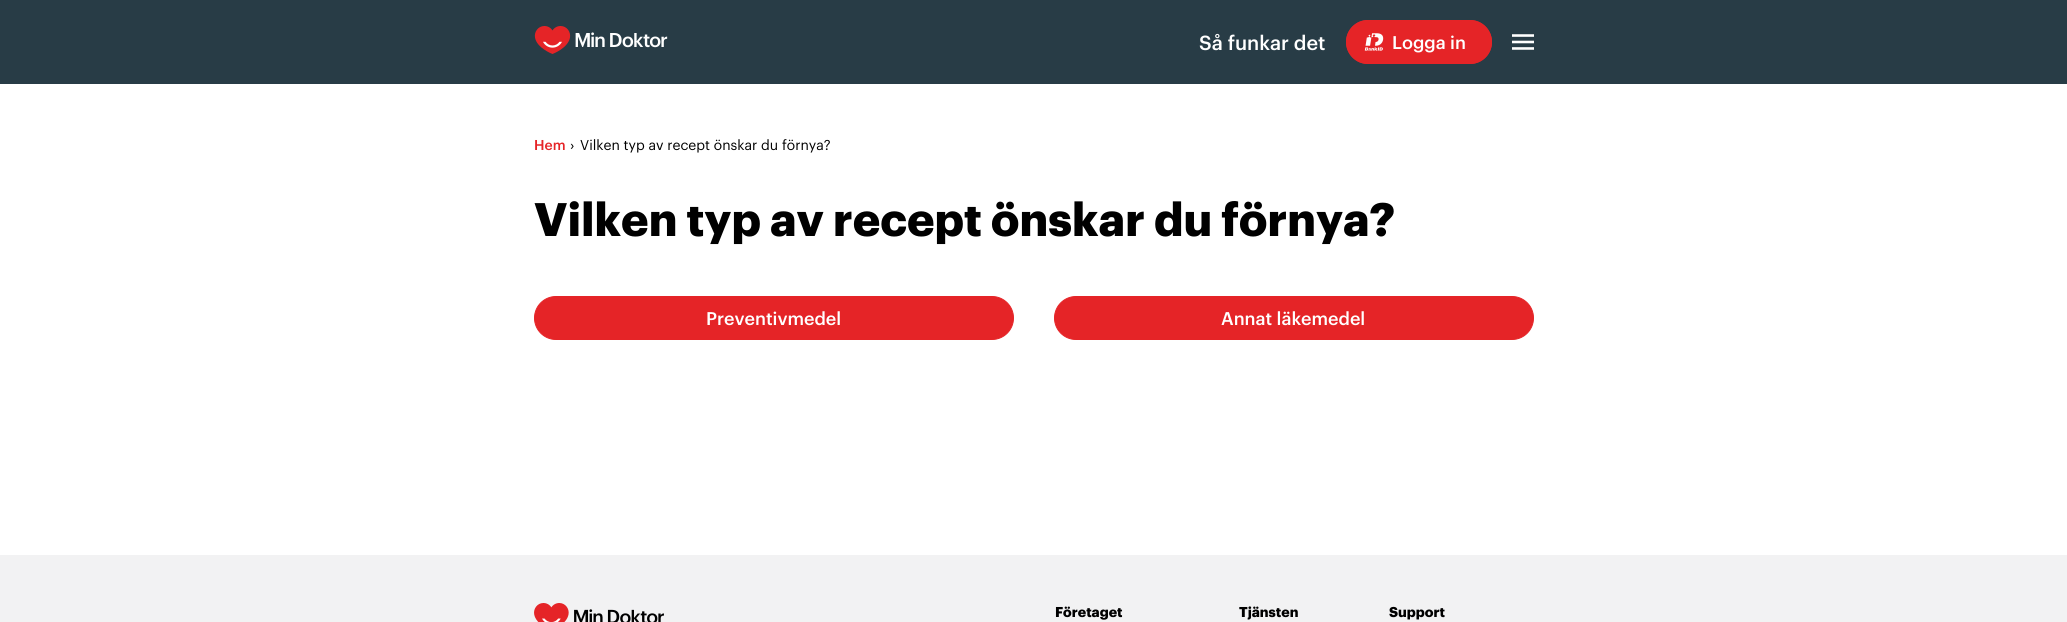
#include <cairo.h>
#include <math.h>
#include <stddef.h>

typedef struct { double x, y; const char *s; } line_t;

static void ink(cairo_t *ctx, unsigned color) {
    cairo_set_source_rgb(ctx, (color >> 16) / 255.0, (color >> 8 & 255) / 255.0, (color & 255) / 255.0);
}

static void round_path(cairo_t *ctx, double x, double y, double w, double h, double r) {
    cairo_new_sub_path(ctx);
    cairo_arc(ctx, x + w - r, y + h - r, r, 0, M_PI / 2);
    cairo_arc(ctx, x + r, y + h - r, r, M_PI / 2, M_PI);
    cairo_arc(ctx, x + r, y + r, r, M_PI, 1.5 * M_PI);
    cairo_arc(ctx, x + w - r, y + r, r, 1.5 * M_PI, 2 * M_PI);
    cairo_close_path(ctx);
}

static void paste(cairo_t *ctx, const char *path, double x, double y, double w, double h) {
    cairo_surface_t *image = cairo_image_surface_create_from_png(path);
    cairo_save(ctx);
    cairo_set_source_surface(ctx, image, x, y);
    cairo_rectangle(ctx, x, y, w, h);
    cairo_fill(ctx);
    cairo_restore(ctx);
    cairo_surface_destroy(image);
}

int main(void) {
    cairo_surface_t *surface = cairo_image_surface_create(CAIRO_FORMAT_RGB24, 2067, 622);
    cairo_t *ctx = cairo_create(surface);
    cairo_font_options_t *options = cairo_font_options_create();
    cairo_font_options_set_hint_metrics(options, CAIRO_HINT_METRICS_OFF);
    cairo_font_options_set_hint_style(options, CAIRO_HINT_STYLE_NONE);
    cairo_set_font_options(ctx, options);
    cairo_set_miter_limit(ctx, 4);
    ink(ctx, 0xFFFFFF);
    cairo_paint(ctx);
    ink(ctx, 0x283C46);
    cairo_rectangle(ctx, 0, 0, 2067, 84);
    cairo_fill(ctx);
    paste(ctx, "media/1.png", 534, 26, 134, 28);
    cairo_select_font_face(ctx, "Graphik Medium", CAIRO_FONT_SLANT_NORMAL, CAIRO_FONT_WEIGHT_NORMAL);
    cairo_set_font_size(ctx, 20);
    ink(ctx, 0xFFFFFF);
    cairo_move_to(ctx, 1199, 50);
    cairo_show_text(ctx, "Så funkar det");
    ink(ctx, 0xE52427);
    round_path(ctx, 1346, 20, 146, 44, 22);
    cairo_fill(ctx);
    paste(ctx, "media/2.png", 1364, 33, 20, 18);
    round_path(ctx, 1346.5, 20.5, 145, 43, 21.5);
    cairo_set_line_width(ctx, 1);
    cairo_stroke(ctx);
    cairo_set_font_size(ctx, 18);
    ink(ctx, 0xFFFFFF);
    cairo_move_to(ctx, 1392, 49);
    cairo_show_text(ctx, "Logga in");
    paste(ctx, "media/3.png", 1512, 34, 22, 16);
    cairo_set_font_size(ctx, 14);
    ink(ctx, 0xE52427);
    cairo_move_to(ctx, 534, 150);
    cairo_show_text(ctx, "Hem");
    cairo_select_font_face(ctx, "Graphik", CAIRO_FONT_SLANT_NORMAL, CAIRO_FONT_WEIGHT_NORMAL);
    ink(ctx, 0x000000);
    cairo_move_to(ctx, 570, 150);
    cairo_show_text(ctx, "›");
    cairo_move_to(ctx, 580, 150);
    cairo_show_text(ctx, "Vilken typ av recept önskar du förnya?");
    cairo_select_font_face(ctx, "Graphik", CAIRO_FONT_SLANT_NORMAL, CAIRO_FONT_WEIGHT_BOLD);
    cairo_set_font_size(ctx, 46);
    cairo_move_to(ctx, 534, 236);
    cairo_show_text(ctx, "Vilken typ av recept önskar du förnya?");
    ink(ctx, 0xE52427);
    round_path(ctx, 534.5, 296.5, 479, 43, 21.5);
    cairo_fill_preserve(ctx);
    cairo_stroke(ctx);
    cairo_select_font_face(ctx, "Graphik Medium", CAIRO_FONT_SLANT_NORMAL, CAIRO_FONT_WEIGHT_NORMAL);
    cairo_set_font_size(ctx, 18);
    ink(ctx, 0xFFFFFF);
    cairo_move_to(ctx, 706, 325);
    cairo_show_text(ctx, "Preventivmedel");
    ink(ctx, 0xE52427);
    round_path(ctx, 1054.5, 296.5, 479, 43, 21.5);
    cairo_fill_preserve(ctx);
    cairo_stroke(ctx);
    ink(ctx, 0xFFFFFF);
    cairo_move_to(ctx, 1221, 325);
    cairo_show_text(ctx, "Annat läkemedel");
    ink(ctx, 0xF2F2F3);
    cairo_rectangle(ctx, 0, 555, 2067, 67);
    cairo_fill(ctx);
    paste(ctx, "media/4.png", 534, 603, 130, 19);
    cairo_select_font_face(ctx, "Graphik", CAIRO_FONT_SLANT_NORMAL, CAIRO_FONT_WEIGHT_BOLD);
    cairo_set_font_size(ctx, 14);
    ink(ctx, 0x000000);
    {
        static const line_t items[] = {
            {1055, 617, "Företaget"},
            {1239, 617, "Tjänsten"},
            {1389, 617, "Support"},
        };
        for (size_t i = 0; i < sizeof items / sizeof *items; i++) {
            cairo_move_to(ctx, items[i].x, items[i].y);
            cairo_show_text(ctx, items[i].s);
        }
    }
    cairo_surface_write_to_png(surface, "image.png");
    cairo_font_options_destroy(options);
    cairo_destroy(ctx);
    cairo_surface_destroy(surface);
    return 0;
}
